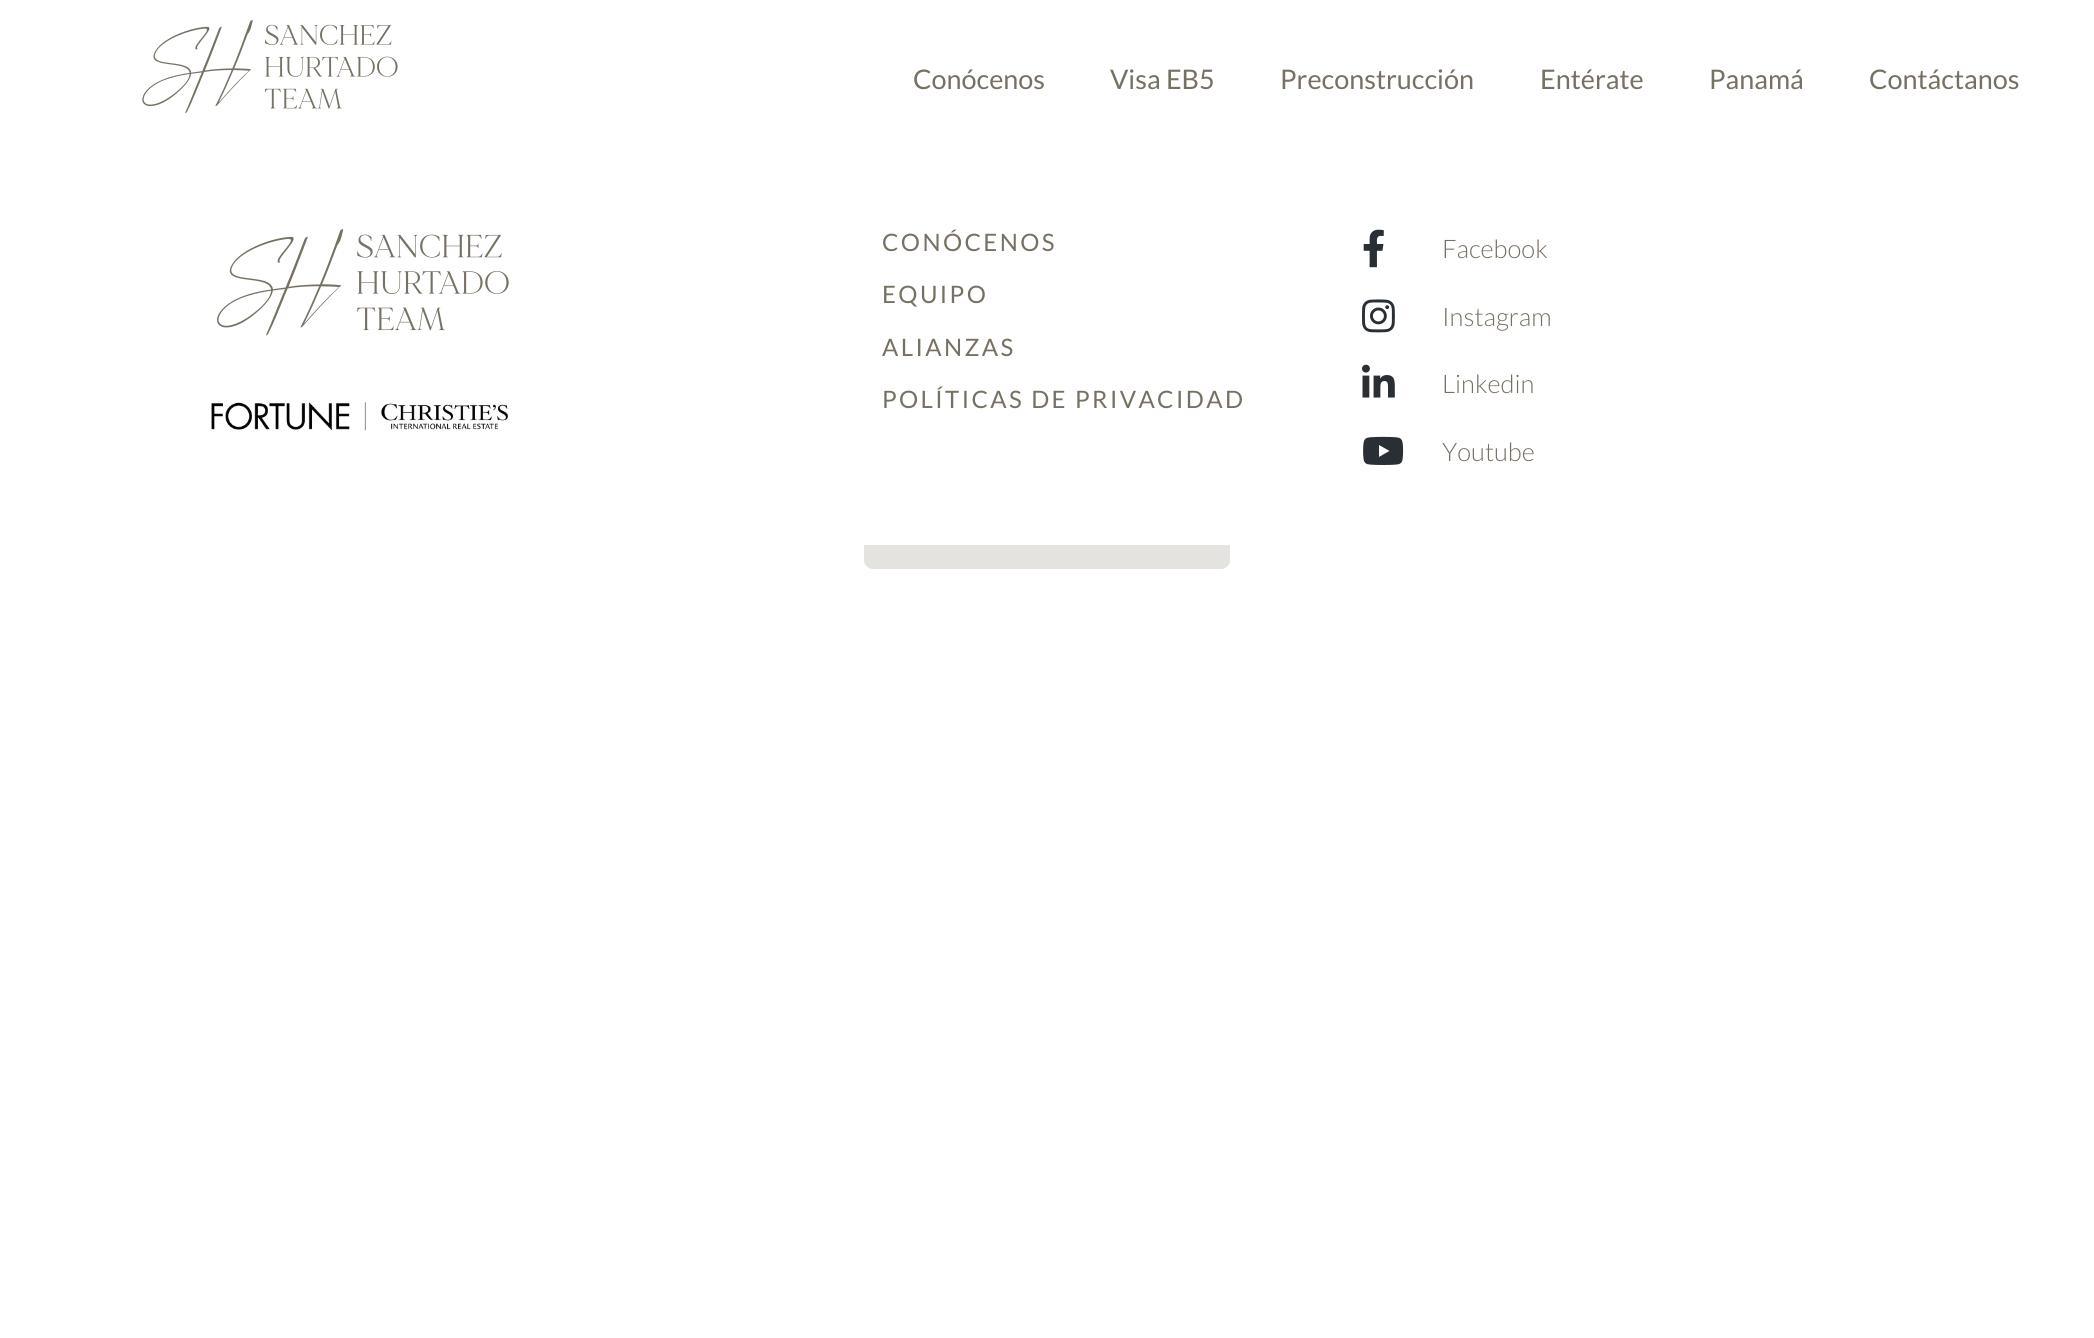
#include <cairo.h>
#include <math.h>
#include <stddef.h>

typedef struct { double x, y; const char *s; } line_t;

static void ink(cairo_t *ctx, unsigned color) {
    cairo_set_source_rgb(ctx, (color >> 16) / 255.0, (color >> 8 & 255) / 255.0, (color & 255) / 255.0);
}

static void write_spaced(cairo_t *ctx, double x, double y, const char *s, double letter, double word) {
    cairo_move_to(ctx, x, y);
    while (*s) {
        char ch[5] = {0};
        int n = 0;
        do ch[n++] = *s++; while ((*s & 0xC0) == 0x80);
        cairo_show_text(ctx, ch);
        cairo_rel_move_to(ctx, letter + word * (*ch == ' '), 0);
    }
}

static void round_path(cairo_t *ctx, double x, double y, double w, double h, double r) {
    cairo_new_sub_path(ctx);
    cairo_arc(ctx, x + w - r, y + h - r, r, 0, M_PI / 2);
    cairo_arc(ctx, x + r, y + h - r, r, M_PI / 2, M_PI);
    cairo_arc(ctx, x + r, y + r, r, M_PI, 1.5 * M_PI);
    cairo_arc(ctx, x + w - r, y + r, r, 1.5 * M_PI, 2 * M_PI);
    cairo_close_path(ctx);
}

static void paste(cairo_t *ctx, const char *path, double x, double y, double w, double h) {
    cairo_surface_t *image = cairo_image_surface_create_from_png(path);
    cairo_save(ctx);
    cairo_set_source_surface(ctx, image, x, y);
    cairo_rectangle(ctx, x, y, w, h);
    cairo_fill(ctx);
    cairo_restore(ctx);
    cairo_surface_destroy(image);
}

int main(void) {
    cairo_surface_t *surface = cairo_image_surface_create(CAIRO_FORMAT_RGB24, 2094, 1338);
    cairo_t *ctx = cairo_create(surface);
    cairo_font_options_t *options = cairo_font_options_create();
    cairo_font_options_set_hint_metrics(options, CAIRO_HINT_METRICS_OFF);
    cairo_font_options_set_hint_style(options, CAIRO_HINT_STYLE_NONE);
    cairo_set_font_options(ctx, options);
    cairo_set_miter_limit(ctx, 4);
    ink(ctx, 0xFFFFFF);
    cairo_paint(ctx);
    paste(ctx, "media/1.png", 142, 20, 256, 94);
    cairo_select_font_face(ctx, "Lato", CAIRO_FONT_SLANT_NORMAL, CAIRO_FONT_WEIGHT_NORMAL);
    cairo_set_font_size(ctx, 27);
    ink(ctx, 0x777163);
    {
        static const line_t items[] = {
            {913, 89, "Conócenos"},
            {1110, 89, "Visa EB5"},
            {1280, 89, "Preconstrucción"},
            {1540, 89, "Entérate"},
            {1709, 89, "Panamá"},
            {1869, 89, "Contáctanos"},
        };
        for (size_t i = 0; i < sizeof items / sizeof *items; i++) {
            cairo_move_to(ctx, items[i].x, items[i].y);
            cairo_show_text(ctx, items[i].s);
        }
    }
    ink(ctx, 0xE5E3E0);
    round_path(ctx, 864, 506, 366, 63, 9);
    cairo_fill(ctx);
    ink(ctx, 0xFFFFFF);
    cairo_rectangle(ctx, 864, 506, 366, 39);
    cairo_fill(ctx);
    paste(ctx, "media/2.png", 217, 229, 292, 107);
    paste(ctx, "media/3.png", 211, 402, 298, 29);
    cairo_set_font_size(ctx, 24);
    ink(ctx, 0x777163);
    {
        static const line_t items[] = {
            {882, 251, "CONÓCENOS"},
            {882, 303, "EQUIPO"},
            {882, 356, "ALIANZAS"},
            {882, 408, "POLÍTICAS DE PRIVACIDAD"},
        };
        for (size_t i = 0; i < sizeof items / sizeof *items; i++) {
            write_spaced(ctx, items[i].x, items[i].y, items[i].s, 2.4, 0);
        }
    }
    paste(ctx, "media/4.png", 1363, 229, 21, 39);
    cairo_select_font_face(ctx, "Lato Light", CAIRO_FONT_SLANT_NORMAL, CAIRO_FONT_WEIGHT_NORMAL);
    cairo_set_font_size(ctx, 25.5);
    cairo_move_to(ctx, 1442, 258);
    cairo_show_text(ctx, "Facebook");
    paste(ctx, "media/5.png", 1362, 299, 33, 34);
    cairo_move_to(ctx, 1442, 326);
    cairo_show_text(ctx, "Instagram");
    paste(ctx, "media/6.png", 1362, 364, 33, 34);
    cairo_move_to(ctx, 1442, 393);
    cairo_show_text(ctx, "Linkedin");
    paste(ctx, "media/7.png", 1363, 436, 41, 29);
    cairo_move_to(ctx, 1442, 461);
    cairo_show_text(ctx, "Youtube");
    cairo_surface_write_to_png(surface, "image.png");
    cairo_font_options_destroy(options);
    cairo_destroy(ctx);
    cairo_surface_destroy(surface);
    return 0;
}
